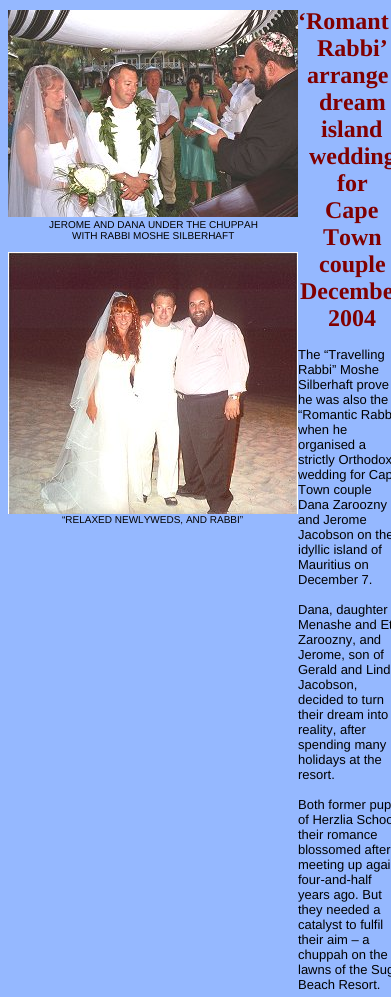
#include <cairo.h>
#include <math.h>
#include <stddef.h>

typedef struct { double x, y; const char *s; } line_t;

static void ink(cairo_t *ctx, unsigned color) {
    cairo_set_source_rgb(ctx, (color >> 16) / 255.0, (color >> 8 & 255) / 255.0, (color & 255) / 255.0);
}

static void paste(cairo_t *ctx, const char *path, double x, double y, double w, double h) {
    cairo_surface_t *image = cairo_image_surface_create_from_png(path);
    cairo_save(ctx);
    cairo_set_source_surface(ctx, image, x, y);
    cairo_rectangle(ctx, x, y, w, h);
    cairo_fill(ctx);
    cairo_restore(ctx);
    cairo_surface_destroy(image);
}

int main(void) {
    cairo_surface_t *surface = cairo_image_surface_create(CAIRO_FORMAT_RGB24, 391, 997);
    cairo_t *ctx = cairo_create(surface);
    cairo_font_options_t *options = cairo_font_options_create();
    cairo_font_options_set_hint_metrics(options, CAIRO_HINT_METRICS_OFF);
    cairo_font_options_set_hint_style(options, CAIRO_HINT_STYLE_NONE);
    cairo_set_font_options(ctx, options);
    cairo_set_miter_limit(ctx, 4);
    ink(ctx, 0x95B8FF);
    cairo_paint(ctx);
    paste(ctx, "media/1.png", 8, 10, 290, 207);
    cairo_select_font_face(ctx, "Liberation Sans", CAIRO_FONT_SLANT_NORMAL, CAIRO_FONT_WEIGHT_NORMAL);
    cairo_set_font_size(ctx, 10);
    ink(ctx, 0x000000);
    cairo_move_to(ctx, 49, 228);
    cairo_show_text(ctx, "JEROME AND DANA UNDER THE CHUPPAH");
    cairo_move_to(ctx, 72, 239);
    cairo_show_text(ctx, "WITH RABBI MOSHE SILBERHAFT");
    paste(ctx, "media/2.png", 8, 252, 290, 262);
    cairo_move_to(ctx, 62, 523);
    cairo_show_text(ctx, "“RELAXED NEWLYWEDS, AND RABBI”");
    cairo_select_font_face(ctx, "Liberation Serif", CAIRO_FONT_SLANT_NORMAL, CAIRO_FONT_WEIGHT_BOLD);
    cairo_set_font_size(ctx, 24);
    ink(ctx, 0x800000);
    {
        static const line_t items[] = {
            {298, 29, "‘Romant"},
            {317, 56, "Rabbi’"},
            {307, 83, "arrange"},
            {319, 110, "dream"},
            {321, 137, "island"},
            {309, 164, "wedding"},
            {337, 191, "for"},
            {325, 218, "Cape"},
            {323, 245, "Town"},
            {319, 272, "couple"},
            {300, 299, "Decembe"},
            {328, 326, "2004"},
        };
        for (size_t i = 0; i < sizeof items / sizeof *items; i++) {
            cairo_move_to(ctx, items[i].x, items[i].y);
            cairo_show_text(ctx, items[i].s);
        }
    }
    cairo_select_font_face(ctx, "Liberation Sans", CAIRO_FONT_SLANT_NORMAL, CAIRO_FONT_WEIGHT_NORMAL);
    cairo_set_font_size(ctx, 13);
    ink(ctx, 0x000000);
    {
        static const line_t items[] = {
            {298, 359, "The “Travelling"},
            {298, 374, "Rabbi” Moshe"},
            {298, 389, "Silberhaft prove"},
            {298, 404, "he was also the"},
            {298, 419, "“Romantic Rabb"},
            {298, 434, "when he"},
            {298, 449, "organised a"},
            {298, 464, "strictly Orthodox"},
            {298, 479, "wedding for Cap"},
            {298, 494, "Town couple"},
            {298, 509, "Dana Zaroozny"},
            {298, 524, "and Jerome"},
            {298, 539, "Jacobson on the"},
            {298, 554, "idyllic island of"},
            {298, 569, "Mauritius on"},
            {298, 584, "December 7."},
            {298, 614, "Dana, daughter"},
            {298, 629, "Menashe and Et"},
            {298, 644, "Zaroozny, and"},
            {298, 659, "Jerome, son of"},
            {298, 674, "Gerald and Lind"},
            {298, 689, "Jacobson,"},
            {298, 704, "decided to turn"},
            {298, 719, "their dream into"},
            {298, 734, "reality, after"},
            {298, 749, "spending many"},
            {298, 764, "holidays at the"},
            {298, 779, "resort."},
            {298, 809, "Both former pup"},
            {298, 824, "of Herzlia Schoo"},
            {298, 839, "their romance"},
            {298, 854, "blossomed after"},
            {298, 869, "meeting up agai"},
            {298, 884, "four-and-half"},
            {298, 899, "years ago. But"},
            {298, 914, "they needed a"},
            {298, 929, "catalyst to fulfil"},
            {298, 944, "their aim – a"},
            {298, 959, "chuppah on the"},
            {298, 974, "lawns of the Sug"},
            {298, 989, "Beach Resort."},
        };
        for (size_t i = 0; i < sizeof items / sizeof *items; i++) {
            cairo_move_to(ctx, items[i].x, items[i].y);
            cairo_show_text(ctx, items[i].s);
        }
    }
    cairo_surface_write_to_png(surface, "image.png");
    cairo_font_options_destroy(options);
    cairo_destroy(ctx);
    cairo_surface_destroy(surface);
    return 0;
}
